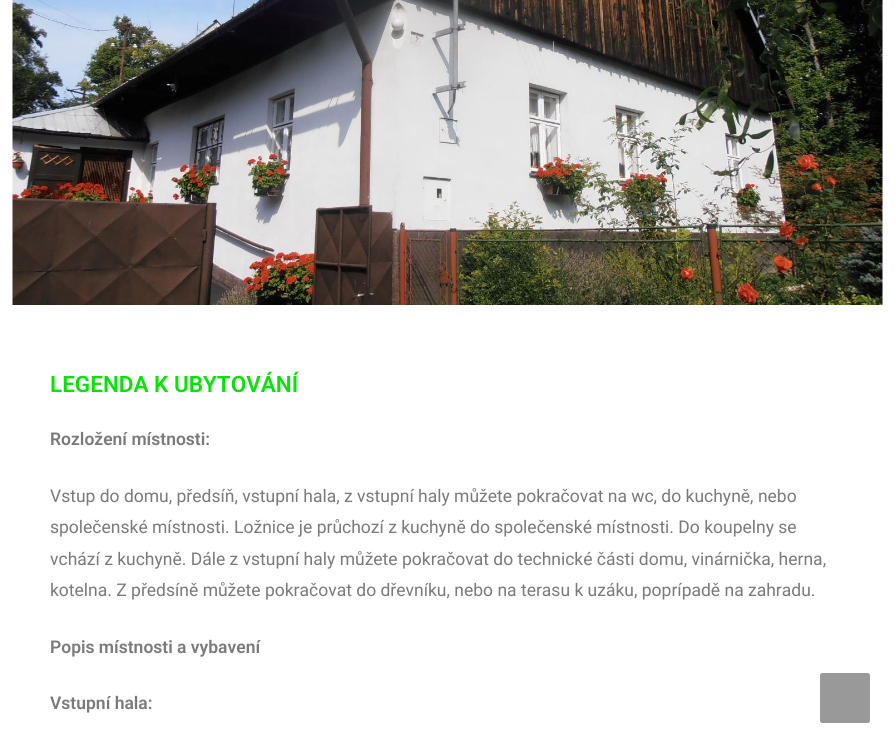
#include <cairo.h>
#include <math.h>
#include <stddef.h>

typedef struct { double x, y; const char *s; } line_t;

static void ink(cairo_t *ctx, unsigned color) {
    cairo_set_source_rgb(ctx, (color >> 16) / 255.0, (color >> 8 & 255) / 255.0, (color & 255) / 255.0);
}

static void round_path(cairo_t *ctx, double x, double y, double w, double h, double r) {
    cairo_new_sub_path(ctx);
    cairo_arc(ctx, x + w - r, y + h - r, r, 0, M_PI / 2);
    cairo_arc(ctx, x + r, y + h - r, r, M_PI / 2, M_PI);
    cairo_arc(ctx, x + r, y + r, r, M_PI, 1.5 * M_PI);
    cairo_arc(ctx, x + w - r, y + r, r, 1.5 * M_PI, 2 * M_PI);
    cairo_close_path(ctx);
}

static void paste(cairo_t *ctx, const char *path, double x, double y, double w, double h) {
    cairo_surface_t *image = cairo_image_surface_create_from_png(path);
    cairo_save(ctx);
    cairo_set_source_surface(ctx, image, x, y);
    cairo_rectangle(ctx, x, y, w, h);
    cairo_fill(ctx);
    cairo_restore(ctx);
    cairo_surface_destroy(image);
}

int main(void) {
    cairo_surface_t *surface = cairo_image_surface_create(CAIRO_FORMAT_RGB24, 895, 747);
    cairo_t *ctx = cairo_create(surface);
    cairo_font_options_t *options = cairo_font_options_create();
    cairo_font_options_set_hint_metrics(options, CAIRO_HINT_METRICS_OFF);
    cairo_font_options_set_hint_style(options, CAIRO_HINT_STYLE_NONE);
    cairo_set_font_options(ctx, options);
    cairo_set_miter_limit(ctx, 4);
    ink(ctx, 0xFFFFFF);
    cairo_paint(ctx);
    paste(ctx, "media/1.png", 12, 0, 871, 305);
    cairo_select_font_face(ctx, "Roboto SemiBold", CAIRO_FONT_SLANT_NORMAL, CAIRO_FONT_WEIGHT_NORMAL);
    cairo_set_font_size(ctx, 22.5);
    ink(ctx, 0x07E307);
    cairo_move_to(ctx, 50, 392);
    cairo_show_text(ctx, "LEGENDA K UBYTOVÁNÍ");
    cairo_set_font_size(ctx, 17.5);
    ink(ctx, 0x7A7A7A);
    cairo_move_to(ctx, 50, 445);
    cairo_show_text(ctx, "Rozložení místnosti:");
    cairo_select_font_face(ctx, "Roboto", CAIRO_FONT_SLANT_NORMAL, CAIRO_FONT_WEIGHT_NORMAL);
    {
        static const line_t items[] = {
            {50, 502, "Vstup do domu, předsíň, vstupní hala, z vstupní haly můžete pokračovat na wc, do kuchyně, nebo"},
            {50, 533, "společenské místnosti. Ložnice je průchozí z kuchyně do společenské místnosti. Do koupelny se"},
            {50, 565, "vchází z kuchyně. Dále z vstupní haly můžete pokračovat do technické části domu, vinárnička, herna,"},
            {50, 596, "kotelna. Z předsíně můžete pokračovat do dřevníku, nebo na terasu k uzáku, poprípadě na zahradu."},
        };
        for (size_t i = 0; i < sizeof items / sizeof *items; i++) {
            cairo_move_to(ctx, items[i].x, items[i].y);
            cairo_show_text(ctx, items[i].s);
        }
    }
    cairo_select_font_face(ctx, "Roboto SemiBold", CAIRO_FONT_SLANT_NORMAL, CAIRO_FONT_WEIGHT_NORMAL);
    cairo_move_to(ctx, 50, 653);
    cairo_show_text(ctx, "Popis místnosti a vybavení");
    cairo_move_to(ctx, 50, 709);
    cairo_show_text(ctx, "Vstupní hala:");
    ink(ctx, 0x999999);
    round_path(ctx, 820, 673, 50, 50, 2.5);
    cairo_fill(ctx);
    cairo_surface_write_to_png(surface, "image.png");
    cairo_font_options_destroy(options);
    cairo_destroy(ctx);
    cairo_surface_destroy(surface);
    return 0;
}
